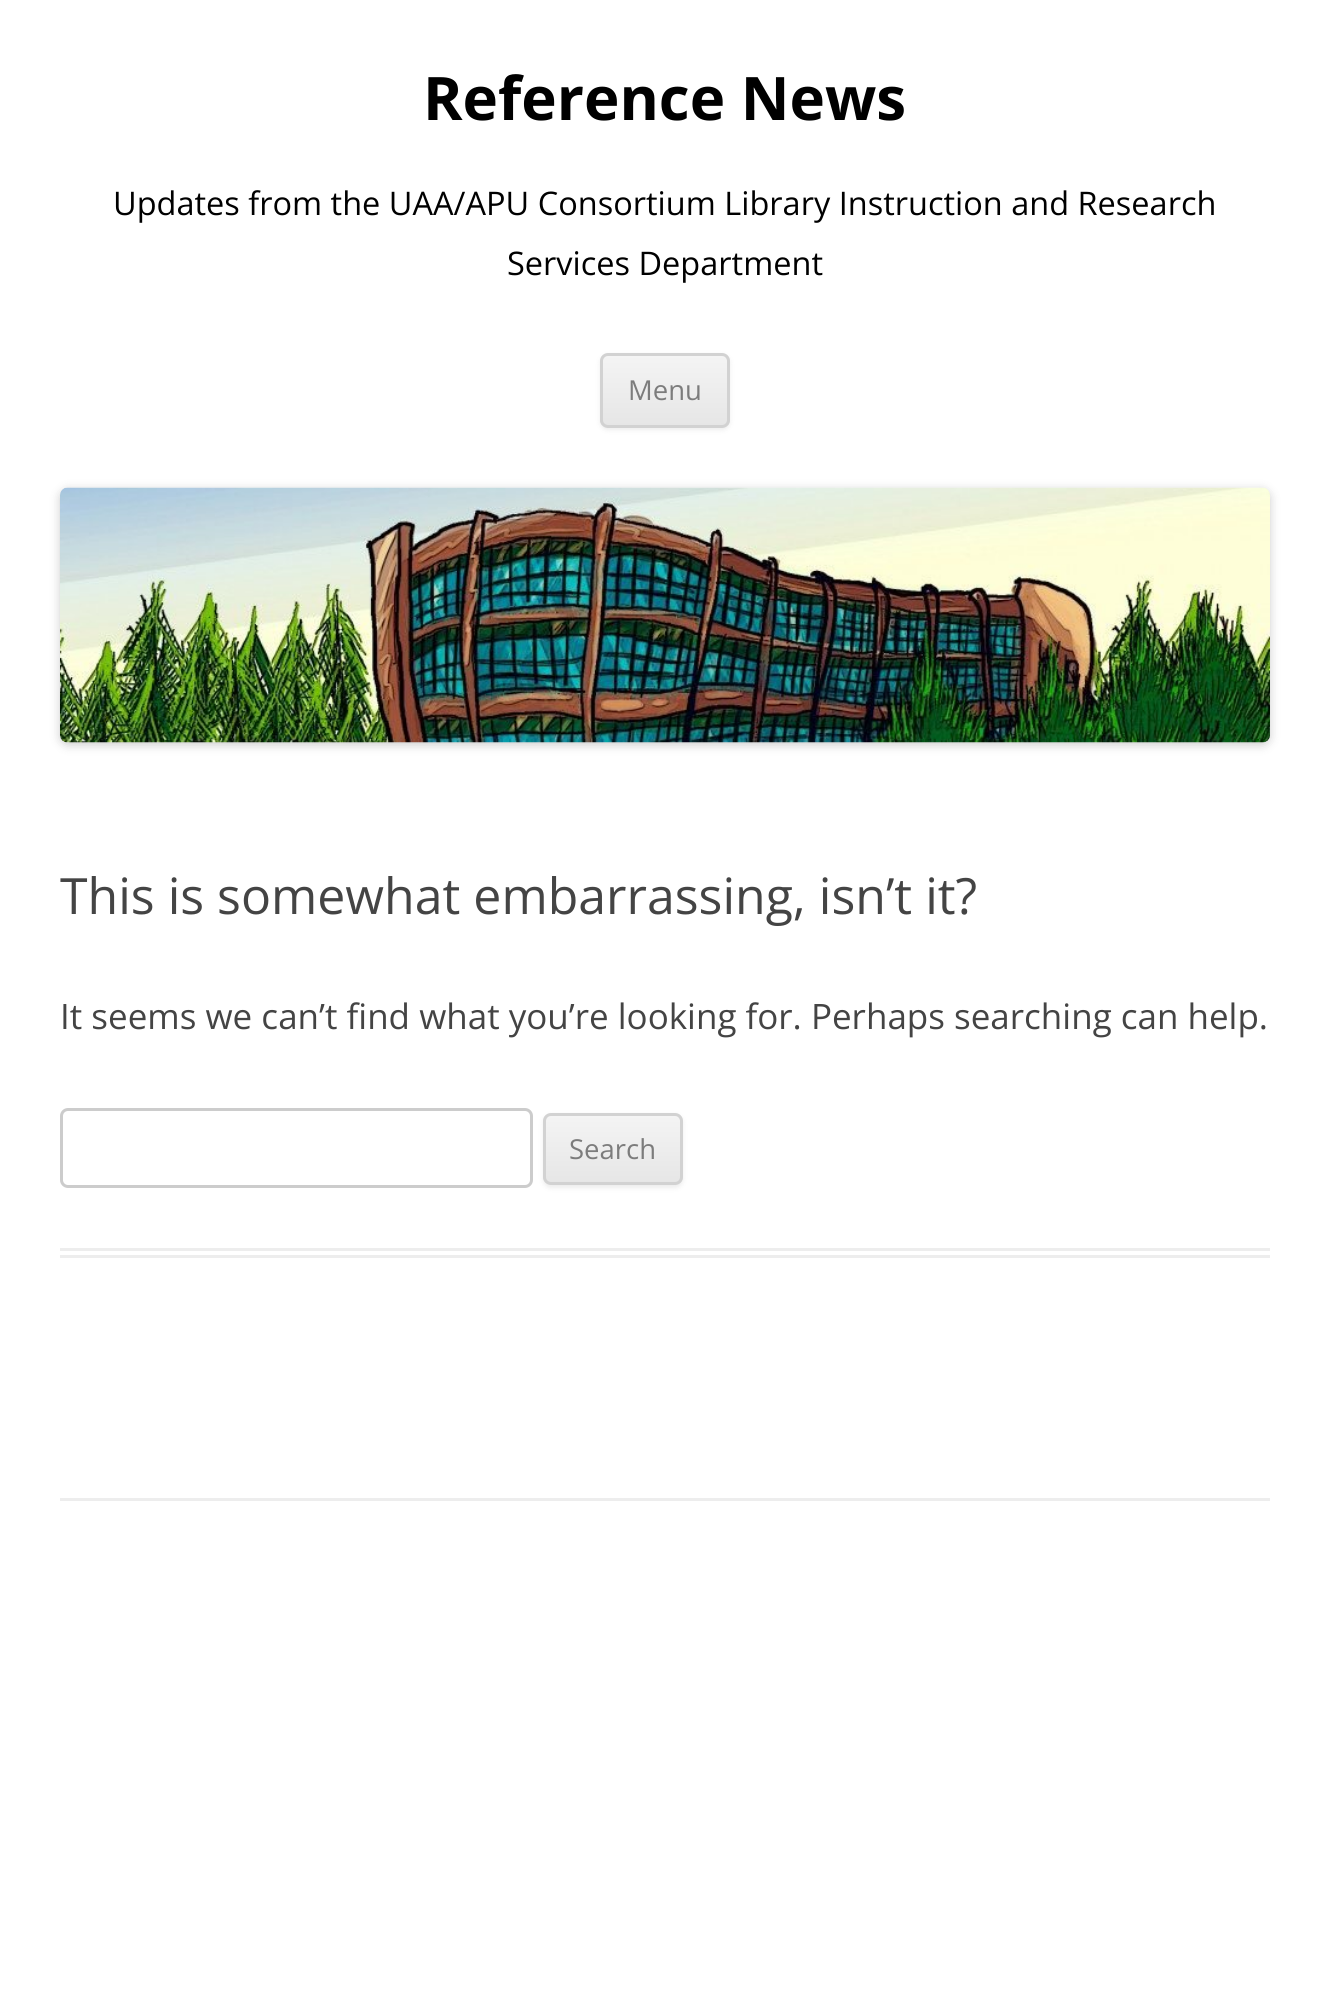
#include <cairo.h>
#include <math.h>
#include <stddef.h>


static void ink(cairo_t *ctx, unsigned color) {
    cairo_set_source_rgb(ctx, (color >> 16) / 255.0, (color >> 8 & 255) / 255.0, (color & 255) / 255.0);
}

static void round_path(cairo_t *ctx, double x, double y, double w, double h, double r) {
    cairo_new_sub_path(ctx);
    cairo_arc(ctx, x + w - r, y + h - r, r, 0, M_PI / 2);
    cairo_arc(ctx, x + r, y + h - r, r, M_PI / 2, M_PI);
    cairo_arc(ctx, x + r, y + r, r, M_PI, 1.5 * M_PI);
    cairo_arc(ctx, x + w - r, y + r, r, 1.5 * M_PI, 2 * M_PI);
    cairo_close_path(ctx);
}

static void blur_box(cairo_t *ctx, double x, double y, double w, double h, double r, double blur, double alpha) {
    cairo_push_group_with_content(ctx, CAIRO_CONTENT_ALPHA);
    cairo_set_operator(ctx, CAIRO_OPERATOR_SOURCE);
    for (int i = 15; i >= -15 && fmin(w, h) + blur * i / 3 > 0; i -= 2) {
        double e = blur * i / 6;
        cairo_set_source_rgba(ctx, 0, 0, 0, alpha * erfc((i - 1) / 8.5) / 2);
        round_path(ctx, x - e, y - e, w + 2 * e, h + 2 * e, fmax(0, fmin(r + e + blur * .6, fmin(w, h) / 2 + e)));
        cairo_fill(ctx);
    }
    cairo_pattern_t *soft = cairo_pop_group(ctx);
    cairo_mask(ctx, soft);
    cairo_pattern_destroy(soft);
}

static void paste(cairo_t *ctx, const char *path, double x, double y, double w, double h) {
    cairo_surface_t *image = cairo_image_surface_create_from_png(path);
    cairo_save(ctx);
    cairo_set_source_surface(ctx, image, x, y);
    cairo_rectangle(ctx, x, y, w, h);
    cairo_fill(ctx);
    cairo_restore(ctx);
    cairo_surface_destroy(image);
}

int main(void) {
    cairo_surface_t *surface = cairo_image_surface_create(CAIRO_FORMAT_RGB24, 1330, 1995);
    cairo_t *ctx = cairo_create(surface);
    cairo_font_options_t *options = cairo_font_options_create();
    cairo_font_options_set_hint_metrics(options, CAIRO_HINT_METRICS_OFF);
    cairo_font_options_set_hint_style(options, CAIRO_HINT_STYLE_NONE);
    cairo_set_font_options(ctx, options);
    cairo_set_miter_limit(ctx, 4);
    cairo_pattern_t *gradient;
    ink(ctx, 0xFFFFFF);
    cairo_paint(ctx);
    cairo_select_font_face(ctx, "Open Sans", CAIRO_FONT_SLANT_NORMAL, CAIRO_FONT_WEIGHT_BOLD);
    cairo_set_font_size(ctx, 60);
    ink(ctx, 0x000000);
    cairo_move_to(ctx, 423, 120);
    cairo_show_text(ctx, "Reference News");
    cairo_select_font_face(ctx, "Open Sans", CAIRO_FONT_SLANT_NORMAL, CAIRO_FONT_WEIGHT_NORMAL);
    cairo_set_font_size(ctx, 32.5);
    cairo_move_to(ctx, 113, 215);
    cairo_show_text(ctx, "Updates from the UAA/APU Consortium Library Instruction and Research");
    cairo_move_to(ctx, 507, 275);
    cairo_show_text(ctx, "Services Department");
    ink(ctx, 0x404040);
    blur_box(ctx, 600, 355, 130, 75, 8, 2.5, 0.1);
    cairo_save(ctx);
    round_path(ctx, 600, 353, 130, 75, 8);
    cairo_clip(ctx);
    gradient = cairo_pattern_create_linear(665, 355, 665, 425);
    cairo_pattern_add_color_stop_rgba(gradient, 0, 0.957, 0.957, 0.957, 1);
    cairo_pattern_add_color_stop_rgba(gradient, 1, 0.902, 0.902, 0.902, 1);
    cairo_set_source(ctx, gradient);
    cairo_pattern_destroy(gradient);
    cairo_rectangle(ctx, 600, 355, 130, 70);
    cairo_fill(ctx);
    cairo_restore(ctx);
    round_path(ctx, 601.5, 354.5, 127, 72, 6.5);
    ink(ctx, 0xD2D2D2);
    cairo_set_line_width(ctx, 3);
    cairo_stroke(ctx);
    cairo_set_font_size(ctx, 27.5);
    ink(ctx, 0x7C7C7C);
    cairo_move_to(ctx, 628, 400);
    cairo_show_text(ctx, "Menu");
    ink(ctx, 0x000000);
    blur_box(ctx, 60, 490, 1210, 255, 8, 5, 0.2);
    paste(ctx, "media/1.png", 60, 487, 1210, 256);
    ink(ctx, 0xEDEDED);
    cairo_rectangle(ctx, 60, 1248, 1210, 3);
    cairo_fill(ctx);
    cairo_rectangle(ctx, 60, 1255, 1210, 3);
    cairo_fill(ctx);
    cairo_set_font_size(ctx, 50);
    ink(ctx, 0x444444);
    cairo_move_to(ctx, 60, 914);
    cairo_show_text(ctx, "This is somewhat embarrassing, isn’t it?");
    cairo_set_font_size(ctx, 35);
    cairo_move_to(ctx, 60, 1029);
    cairo_show_text(ctx, "It seems we can’t find what you’re looking for. Perhaps searching can help.");
    round_path(ctx, 61.5, 1109.5, 470, 77, 6.5);
    ink(ctx, 0xCCCCCC);
    cairo_stroke(ctx);
    ink(ctx, 0x404040);
    blur_box(ctx, 543, 1115, 140, 73, 8, 2.5, 0.1);
    cairo_save(ctx);
    round_path(ctx, 543, 1113, 140, 72, 8);
    cairo_clip(ctx);
    gradient = cairo_pattern_create_linear(613, 1115, 613, 1183);
    cairo_pattern_add_color_stop_rgba(gradient, 0, 0.957, 0.957, 0.957, 1);
    cairo_pattern_add_color_stop_rgba(gradient, 1, 0.902, 0.902, 0.902, 1);
    cairo_set_source(ctx, gradient);
    cairo_pattern_destroy(gradient);
    cairo_rectangle(ctx, 543, 1115, 140, 68);
    cairo_fill(ctx);
    cairo_restore(ctx);
    round_path(ctx, 544.5, 1114.5, 137, 69, 6.5);
    ink(ctx, 0xD2D2D2);
    cairo_stroke(ctx);
    cairo_set_font_size(ctx, 27.5);
    ink(ctx, 0x7C7C7C);
    cairo_move_to(ctx, 569, 1159);
    cairo_show_text(ctx, "Search");
    ink(ctx, 0xEDEDED);
    cairo_rectangle(ctx, 60, 1498, 1210, 3);
    cairo_fill(ctx);
    cairo_surface_write_to_png(surface, "image.png");
    cairo_font_options_destroy(options);
    cairo_destroy(ctx);
    cairo_surface_destroy(surface);
    return 0;
}
